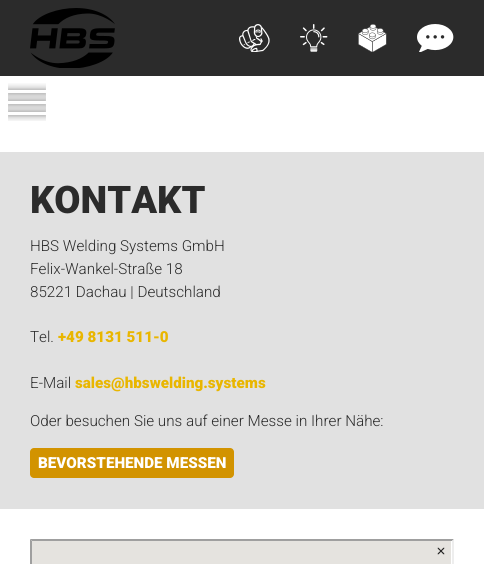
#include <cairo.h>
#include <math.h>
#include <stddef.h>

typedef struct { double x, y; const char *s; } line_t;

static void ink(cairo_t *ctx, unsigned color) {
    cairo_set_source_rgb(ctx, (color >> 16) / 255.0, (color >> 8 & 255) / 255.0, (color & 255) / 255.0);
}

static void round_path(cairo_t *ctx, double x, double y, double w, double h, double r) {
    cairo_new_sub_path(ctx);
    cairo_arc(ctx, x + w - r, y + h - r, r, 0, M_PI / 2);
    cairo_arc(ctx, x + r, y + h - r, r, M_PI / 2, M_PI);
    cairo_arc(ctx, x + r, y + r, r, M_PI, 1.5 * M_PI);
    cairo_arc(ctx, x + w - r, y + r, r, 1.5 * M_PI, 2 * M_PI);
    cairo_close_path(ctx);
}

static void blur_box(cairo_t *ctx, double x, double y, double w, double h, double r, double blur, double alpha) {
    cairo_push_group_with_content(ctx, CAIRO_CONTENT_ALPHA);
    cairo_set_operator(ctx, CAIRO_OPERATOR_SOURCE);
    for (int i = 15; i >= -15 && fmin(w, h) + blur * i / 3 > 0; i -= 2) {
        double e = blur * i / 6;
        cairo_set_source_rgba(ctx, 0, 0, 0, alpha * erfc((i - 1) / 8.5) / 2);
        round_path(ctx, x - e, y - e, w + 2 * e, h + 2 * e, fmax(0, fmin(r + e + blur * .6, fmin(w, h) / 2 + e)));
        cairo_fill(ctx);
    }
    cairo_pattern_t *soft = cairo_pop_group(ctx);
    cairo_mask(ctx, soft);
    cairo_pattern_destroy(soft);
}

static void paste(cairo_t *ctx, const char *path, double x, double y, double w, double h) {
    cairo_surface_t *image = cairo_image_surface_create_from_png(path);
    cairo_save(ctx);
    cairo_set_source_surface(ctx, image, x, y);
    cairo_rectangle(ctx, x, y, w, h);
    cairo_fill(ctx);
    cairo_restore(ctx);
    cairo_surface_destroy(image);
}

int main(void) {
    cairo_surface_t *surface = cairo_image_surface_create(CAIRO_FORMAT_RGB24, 484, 564);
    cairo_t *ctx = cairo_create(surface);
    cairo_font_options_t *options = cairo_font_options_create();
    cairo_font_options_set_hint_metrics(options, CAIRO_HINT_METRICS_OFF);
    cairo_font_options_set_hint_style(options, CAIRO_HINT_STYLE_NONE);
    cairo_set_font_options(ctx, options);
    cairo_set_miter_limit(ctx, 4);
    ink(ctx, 0xFFFFFF);
    cairo_paint(ctx);
    ink(ctx, 0x2B2B2B);
    cairo_rectangle(ctx, 0, 0, 484, 76);
    cairo_fill(ctx);
    paste(ctx, "media/1.png", 30, 8, 85, 60);
    paste(ctx, "media/2.png", 239, 24, 31, 28);
    paste(ctx, "media/3.png", 300, 24, 28, 28);
    paste(ctx, "media/4.png", 358, 24, 29, 28);
    paste(ctx, "media/5.png", 417, 24, 37, 28);
    cairo_save(ctx);
    cairo_rectangle(ctx, 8, 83, 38, 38);
    cairo_clip(ctx);
    ink(ctx, 0x000000);
    blur_box(ctx, 8, 90, 38, 3, 0, 4, 0.5);
    cairo_restore(ctx);
    ink(ctx, 0xFFFFFF);
    cairo_rectangle(ctx, 8, 90, 38, 3);
    cairo_fill(ctx);
    cairo_save(ctx);
    cairo_rectangle(ctx, 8, 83, 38, 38);
    cairo_clip(ctx);
    ink(ctx, 0x000000);
    blur_box(ctx, 8, 101, 38, 3, 0, 4, 0.5);
    cairo_restore(ctx);
    cairo_rectangle(ctx, 8, 101, 38, 3);
    cairo_fill(ctx);
    cairo_save(ctx);
    cairo_rectangle(ctx, 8, 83, 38, 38);
    cairo_clip(ctx);
    ink(ctx, 0x000000);
    blur_box(ctx, 8, 112, 38, 3, 0, 4, 0.5);
    cairo_restore(ctx);
    cairo_rectangle(ctx, 8, 112, 38, 3);
    cairo_fill(ctx);
    ink(ctx, 0xE1E1E1);
    cairo_rectangle(ctx, 0, 152, 484, 357);
    cairo_fill(ctx);
    cairo_select_font_face(ctx, "Roboto Black", CAIRO_FONT_SLANT_NORMAL, CAIRO_FONT_WEIGHT_NORMAL);
    cairo_set_font_size(ctx, 38);
    ink(ctx, 0x2B2B2B);
    cairo_move_to(ctx, 30, 213);
    cairo_show_text(ctx, "KONTAKT");
    cairo_select_font_face(ctx, "Roboto Light", CAIRO_FONT_SLANT_NORMAL, CAIRO_FONT_WEIGHT_NORMAL);
    cairo_set_font_size(ctx, 15.2);
    {
        static const line_t items[] = {
            {30, 251, "HBS Welding Systems GmbH"},
            {30, 274, "Felix-Wankel-Straße 18"},
            {30, 297, "85221 Dachau | Deutschland"},
            {30, 342, "Tel."},
        };
        for (size_t i = 0; i < sizeof items / sizeof *items; i++) {
            cairo_move_to(ctx, items[i].x, items[i].y);
            cairo_show_text(ctx, items[i].s);
        }
    }
    cairo_select_font_face(ctx, "Roboto Black", CAIRO_FONT_SLANT_NORMAL, CAIRO_FONT_WEIGHT_NORMAL);
    ink(ctx, 0xE9B600);
    cairo_move_to(ctx, 58, 342);
    cairo_show_text(ctx, "+49 8131 511-0");
    cairo_select_font_face(ctx, "Roboto Light", CAIRO_FONT_SLANT_NORMAL, CAIRO_FONT_WEIGHT_NORMAL);
    ink(ctx, 0x2B2B2B);
    cairo_move_to(ctx, 30, 388);
    cairo_show_text(ctx, "E-Mail");
    cairo_select_font_face(ctx, "Roboto Black", CAIRO_FONT_SLANT_NORMAL, CAIRO_FONT_WEIGHT_NORMAL);
    ink(ctx, 0xE9B600);
    cairo_move_to(ctx, 75, 388);
    cairo_show_text(ctx, "sales@hbswelding.systems");
    cairo_select_font_face(ctx, "Roboto Light", CAIRO_FONT_SLANT_NORMAL, CAIRO_FONT_WEIGHT_NORMAL);
    ink(ctx, 0x2B2B2B);
    cairo_move_to(ctx, 30, 426);
    cairo_show_text(ctx, "Oder besuchen Sie uns auf einer Messe in Ihrer Nähe:");
    ink(ctx, 0xD29300);
    round_path(ctx, 30, 448, 204, 30, 4);
    cairo_fill(ctx);
    cairo_select_font_face(ctx, "Roboto Black", CAIRO_FONT_SLANT_NORMAL, CAIRO_FONT_WEIGHT_NORMAL);
    ink(ctx, 0xFFFFFF);
    cairo_move_to(ctx, 38, 468);
    cairo_show_text(ctx, "BEVORSTEHENDE MESSEN");
    ink(ctx, 0x9F9F9F);
    cairo_new_path(ctx);
    cairo_move_to(ctx, 30, 539);
    cairo_line_to(ctx, 454, 539);
    cairo_line_to(ctx, 452, 541);
    cairo_line_to(ctx, 32, 541);
    cairo_close_path(ctx);
    cairo_fill(ctx);
    ink(ctx, 0xEEEEEE);
    cairo_new_path(ctx);
    cairo_move_to(ctx, 454, 539);
    cairo_line_to(ctx, 454, 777);
    cairo_line_to(ctx, 452, 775);
    cairo_line_to(ctx, 452, 541);
    cairo_close_path(ctx);
    cairo_fill(ctx);
    ink(ctx, 0x9F9F9F);
    cairo_new_path(ctx);
    cairo_move_to(ctx, 30, 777);
    cairo_line_to(ctx, 30, 539);
    cairo_line_to(ctx, 32, 541);
    cairo_line_to(ctx, 32, 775);
    cairo_close_path(ctx);
    cairo_fill(ctx);
    paste(ctx, "media/6.png", 32, 541, 419, 23);
    cairo_surface_write_to_png(surface, "image.png");
    cairo_font_options_destroy(options);
    cairo_destroy(ctx);
    cairo_surface_destroy(surface);
    return 0;
}
